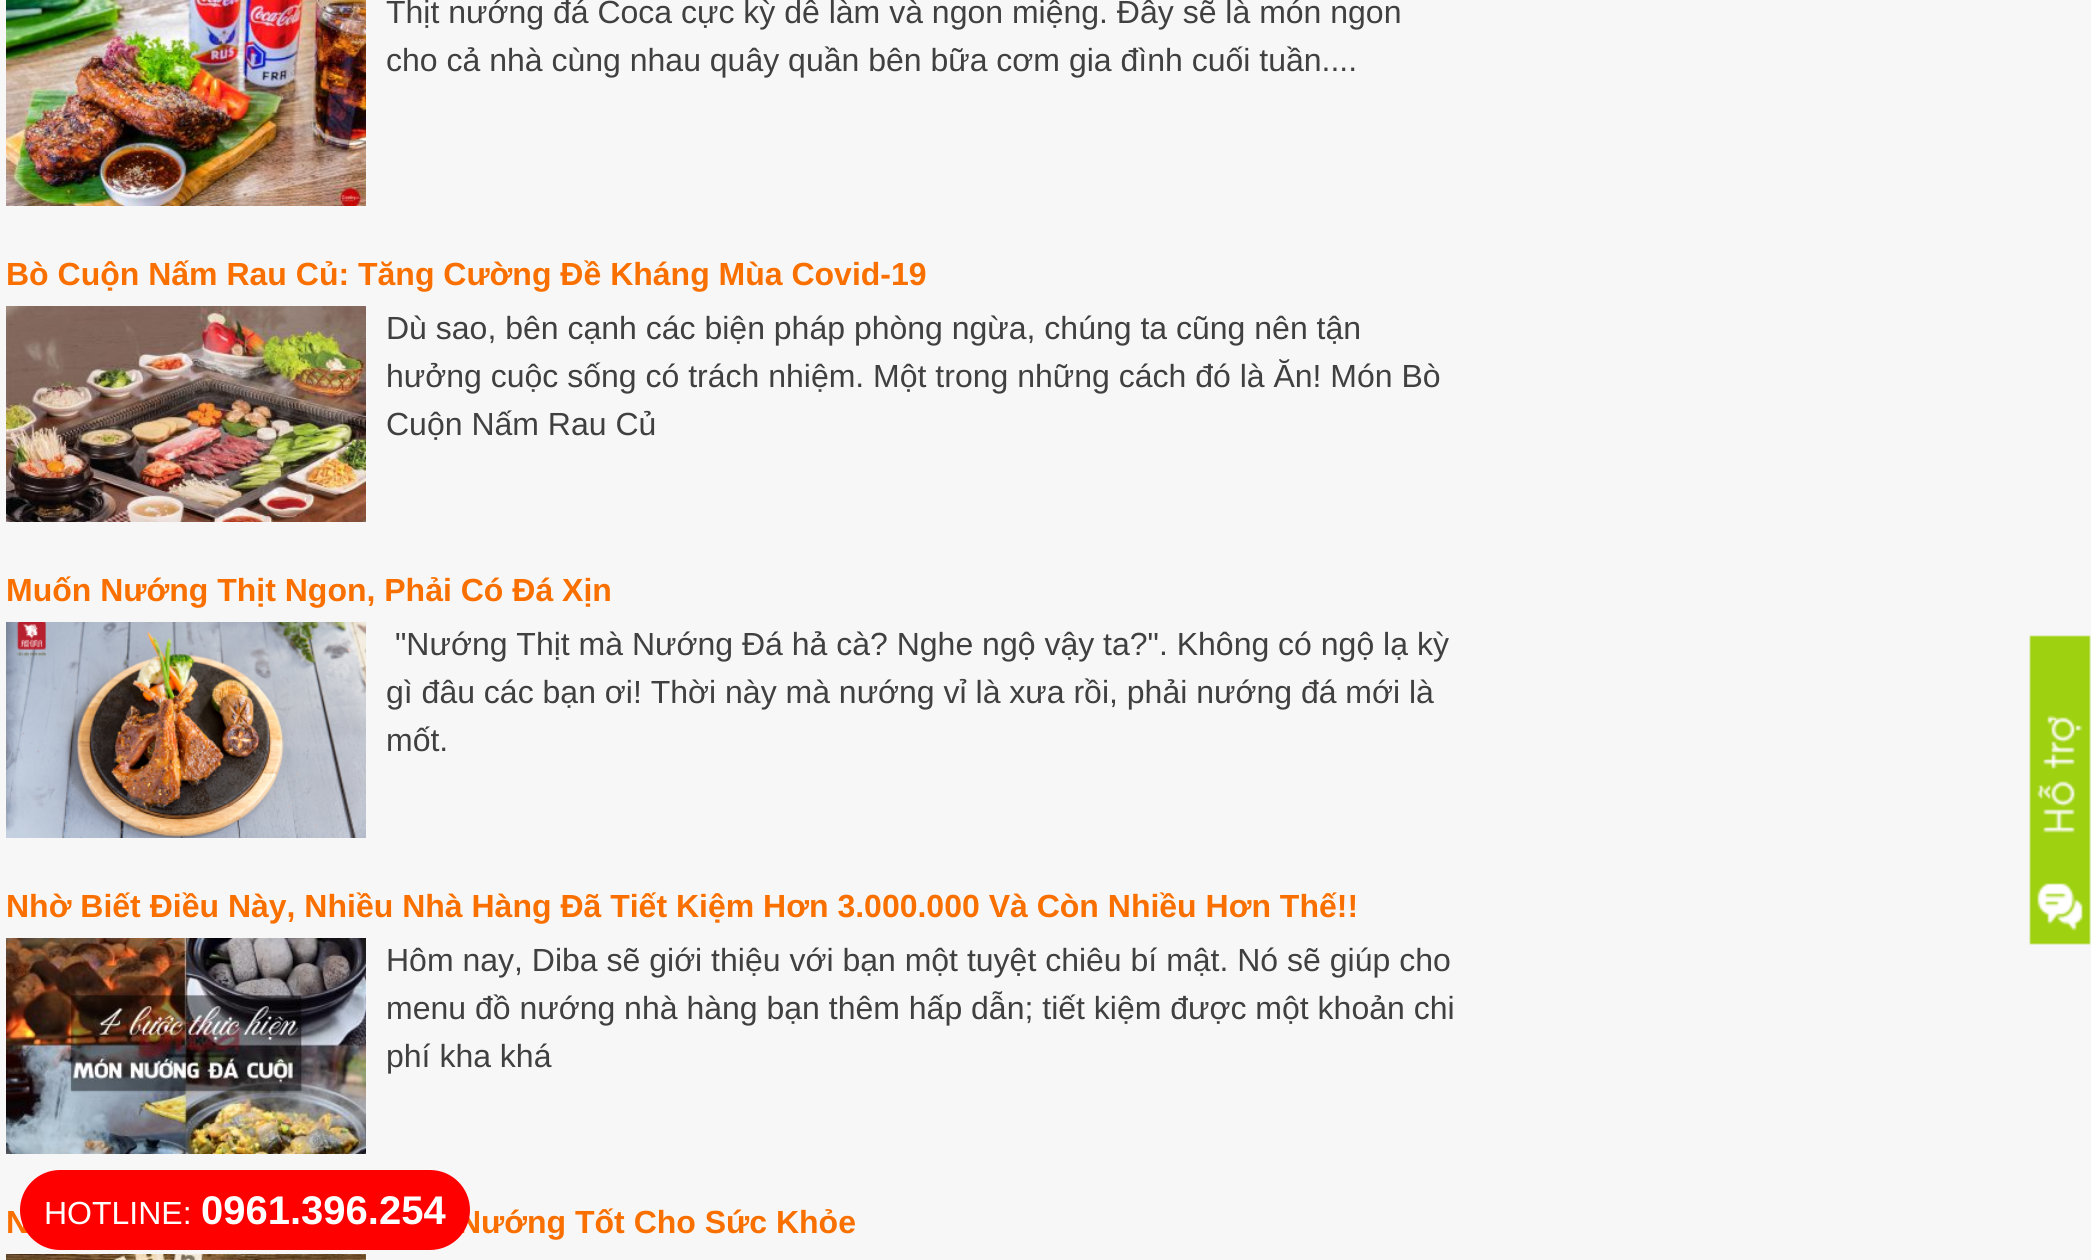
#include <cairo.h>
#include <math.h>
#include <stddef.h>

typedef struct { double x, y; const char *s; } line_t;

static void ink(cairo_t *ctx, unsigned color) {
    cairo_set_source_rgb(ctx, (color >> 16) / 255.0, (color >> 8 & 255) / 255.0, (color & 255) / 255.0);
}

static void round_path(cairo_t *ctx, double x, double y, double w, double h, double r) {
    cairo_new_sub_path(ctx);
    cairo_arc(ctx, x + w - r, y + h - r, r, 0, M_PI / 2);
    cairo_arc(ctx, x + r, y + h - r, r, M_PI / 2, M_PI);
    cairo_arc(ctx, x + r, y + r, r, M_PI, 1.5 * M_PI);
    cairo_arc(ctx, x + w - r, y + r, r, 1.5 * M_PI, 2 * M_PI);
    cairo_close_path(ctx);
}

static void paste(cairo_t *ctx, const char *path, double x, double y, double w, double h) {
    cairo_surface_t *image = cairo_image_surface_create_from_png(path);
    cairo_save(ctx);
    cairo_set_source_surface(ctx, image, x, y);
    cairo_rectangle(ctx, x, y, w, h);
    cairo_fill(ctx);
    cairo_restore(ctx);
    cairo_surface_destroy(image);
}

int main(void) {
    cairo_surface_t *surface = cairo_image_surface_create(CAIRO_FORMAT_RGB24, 2091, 1260);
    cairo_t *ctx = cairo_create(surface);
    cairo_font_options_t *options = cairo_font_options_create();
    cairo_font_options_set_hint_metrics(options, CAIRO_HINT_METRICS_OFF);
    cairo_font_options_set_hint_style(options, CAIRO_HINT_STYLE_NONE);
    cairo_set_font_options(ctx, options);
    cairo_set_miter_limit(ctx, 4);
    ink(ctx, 0xF7F7F7);
    cairo_paint(ctx);
    paste(ctx, "media/1.png", 6, 0, 360, 206);
    cairo_select_font_face(ctx, "Liberation Sans", CAIRO_FONT_SLANT_NORMAL, CAIRO_FONT_WEIGHT_NORMAL);
    cairo_set_font_size(ctx, 32);
    ink(ctx, 0x404040);
    cairo_move_to(ctx, 386, 23);
    cairo_show_text(ctx, "Thịt nướng đá Coca cực kỳ dễ làm và ngon miệng. Đây sẽ là món ngon");
    cairo_move_to(ctx, 386, 71);
    cairo_show_text(ctx, "cho cả nhà cùng nhau quây quần bên bữa cơm gia đình cuối tuần....");
    cairo_select_font_face(ctx, "Liberation Sans", CAIRO_FONT_SLANT_NORMAL, CAIRO_FONT_WEIGHT_BOLD);
    ink(ctx, 0xF97000);
    cairo_move_to(ctx, 6, 285);
    cairo_show_text(ctx, "Bò Cuộn Nấm Rau Củ: Tăng Cường Đề Kháng Mùa Covid-19");
    paste(ctx, "media/2.png", 6, 306, 360, 216);
    cairo_select_font_face(ctx, "Liberation Sans", CAIRO_FONT_SLANT_NORMAL, CAIRO_FONT_WEIGHT_NORMAL);
    ink(ctx, 0x404040);
    {
        static const line_t items[] = {
            {386, 339, "Dù sao, bên cạnh các biện pháp phòng ngừa, chúng ta cũng nên tận"},
            {386, 387, "hưởng cuộc sống có trách nhiệm. Một trong những cách đó là Ăn! Món Bò"},
            {386, 435, "Cuộn Nấm Rau Củ"},
        };
        for (size_t i = 0; i < sizeof items / sizeof *items; i++) {
            cairo_move_to(ctx, items[i].x, items[i].y);
            cairo_show_text(ctx, items[i].s);
        }
    }
    cairo_select_font_face(ctx, "Liberation Sans", CAIRO_FONT_SLANT_NORMAL, CAIRO_FONT_WEIGHT_BOLD);
    ink(ctx, 0xF97000);
    cairo_move_to(ctx, 6, 601);
    cairo_show_text(ctx, "Muốn Nướng Thịt Ngon, Phải Có Đá Xịn");
    paste(ctx, "media/3.png", 6, 622, 360, 216);
    cairo_select_font_face(ctx, "Liberation Sans", CAIRO_FONT_SLANT_NORMAL, CAIRO_FONT_WEIGHT_NORMAL);
    ink(ctx, 0x404040);
    {
        static const line_t items[] = {
            {395, 655, "\"Nướng Thịt mà Nướng Đá hả cà? Nghe ngộ vậy ta?\". Không có ngộ lạ kỳ"},
            {386, 703, "gì đâu các bạn ơi! Thời này mà nướng vỉ là xưa rồi, phải nướng đá mới là"},
            {386, 751, "mốt."},
        };
        for (size_t i = 0; i < sizeof items / sizeof *items; i++) {
            cairo_move_to(ctx, items[i].x, items[i].y);
            cairo_show_text(ctx, items[i].s);
        }
    }
    cairo_select_font_face(ctx, "Liberation Sans", CAIRO_FONT_SLANT_NORMAL, CAIRO_FONT_WEIGHT_BOLD);
    ink(ctx, 0xF97000);
    cairo_move_to(ctx, 6, 917);
    cairo_show_text(ctx, "Nhờ Biết Điều Này, Nhiều Nhà Hàng Đã Tiết Kiệm Hơn 3.000.000 Và Còn Nhiều Hơn Thế!!");
    paste(ctx, "media/4.png", 6, 938, 360, 216);
    cairo_select_font_face(ctx, "Liberation Sans", CAIRO_FONT_SLANT_NORMAL, CAIRO_FONT_WEIGHT_NORMAL);
    ink(ctx, 0x404040);
    {
        static const line_t items[] = {
            {386, 971, "Hôm nay, Diba sẽ giới thiệu với bạn một tuyệt chiêu bí mật. Nó sẽ giúp cho"},
            {386, 1019, "menu đồ nướng nhà hàng bạn thêm hấp dẫn; tiết kiệm được một khoản chi"},
            {386, 1067, "phí kha khá"},
        };
        for (size_t i = 0; i < sizeof items / sizeof *items; i++) {
            cairo_move_to(ctx, items[i].x, items[i].y);
            cairo_show_text(ctx, items[i].s);
        }
    }
    cairo_select_font_face(ctx, "Liberation Sans", CAIRO_FONT_SLANT_NORMAL, CAIRO_FONT_WEIGHT_BOLD);
    ink(ctx, 0xF97000);
    cairo_move_to(ctx, 6, 1233);
    cairo_show_text(ctx, "N");
    cairo_move_to(ctx, 458, 1233);
    cairo_show_text(ctx, "Nướng Tốt Cho Sức Khỏe");
    paste(ctx, "media/5.png", 6, 1254, 360, 6);
    paste(ctx, "media/6.png", 2029, 635, 62, 310);
    ink(ctx, 0xFF0000);
    round_path(ctx, 20, 1170, 450, 80, 40);
    cairo_fill(ctx);
    cairo_select_font_face(ctx, "Liberation Sans", CAIRO_FONT_SLANT_NORMAL, CAIRO_FONT_WEIGHT_NORMAL);
    ink(ctx, 0xFFFFFF);
    cairo_move_to(ctx, 44, 1224);
    cairo_show_text(ctx, "HOTLINE:");
    cairo_select_font_face(ctx, "Liberation Sans", CAIRO_FONT_SLANT_NORMAL, CAIRO_FONT_WEIGHT_BOLD);
    cairo_set_font_size(ctx, 40);
    cairo_move_to(ctx, 201, 1224);
    cairo_show_text(ctx, "0961.396.254");
    cairo_surface_write_to_png(surface, "image.png");
    cairo_font_options_destroy(options);
    cairo_destroy(ctx);
    cairo_surface_destroy(surface);
    return 0;
}
